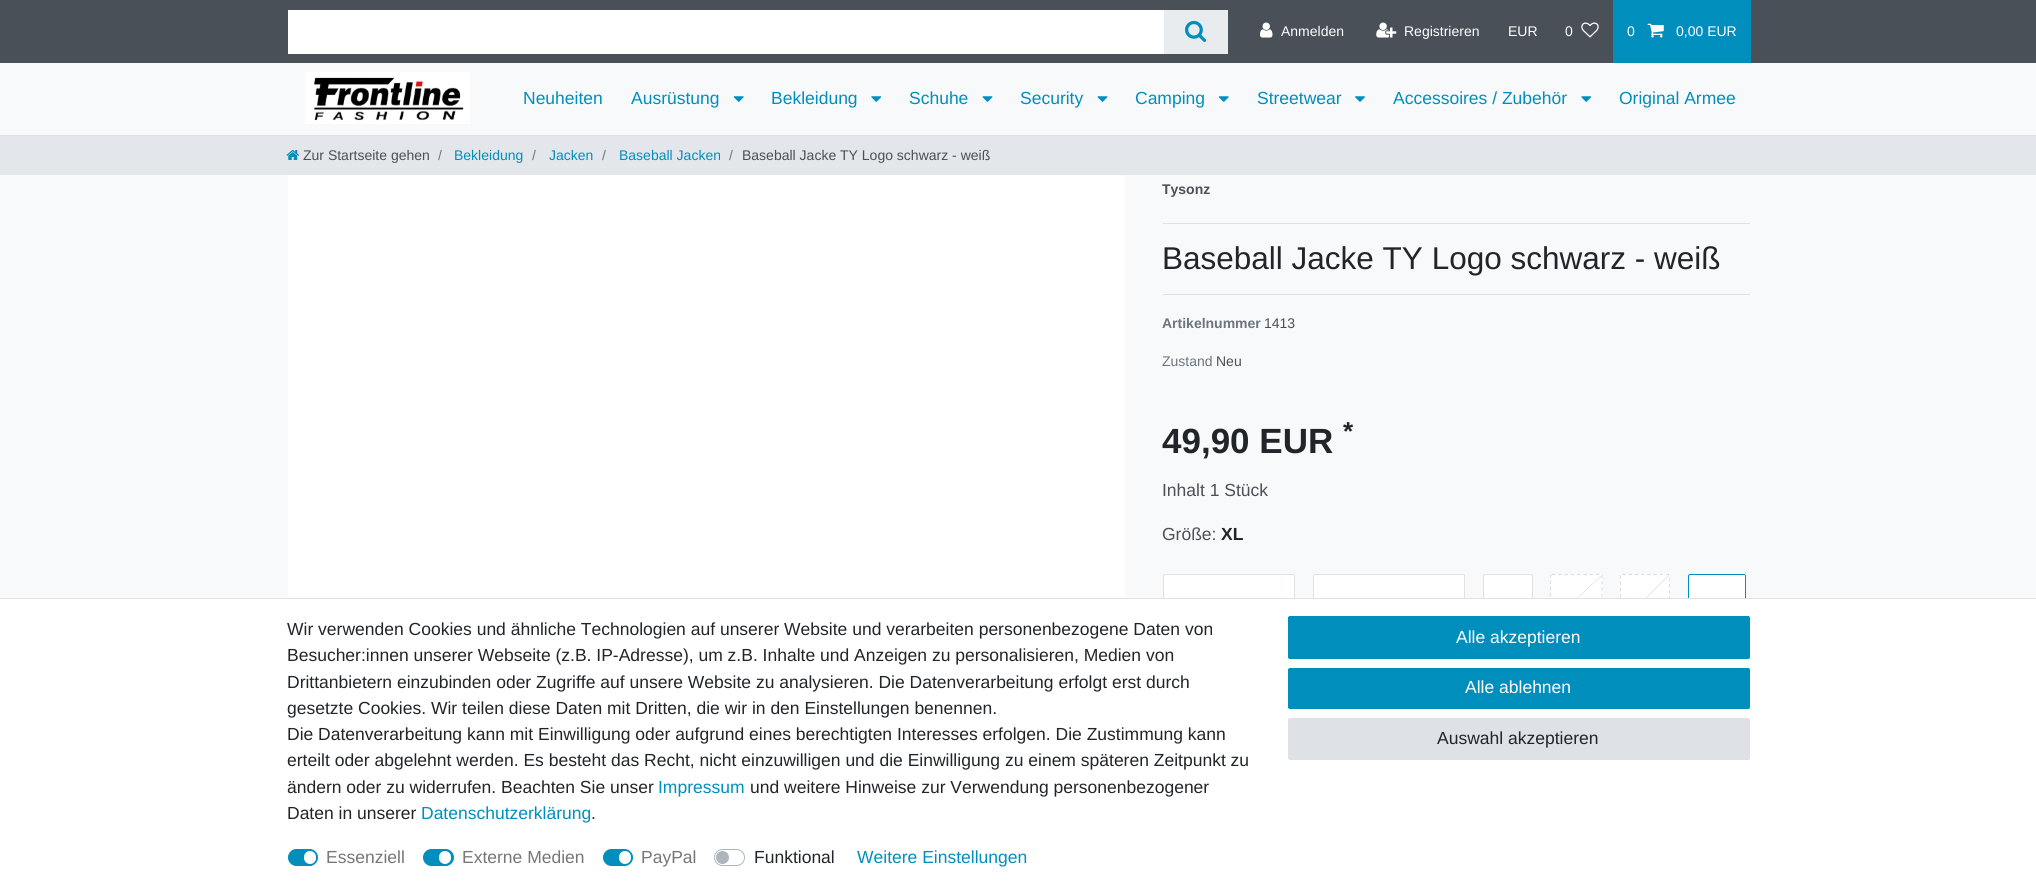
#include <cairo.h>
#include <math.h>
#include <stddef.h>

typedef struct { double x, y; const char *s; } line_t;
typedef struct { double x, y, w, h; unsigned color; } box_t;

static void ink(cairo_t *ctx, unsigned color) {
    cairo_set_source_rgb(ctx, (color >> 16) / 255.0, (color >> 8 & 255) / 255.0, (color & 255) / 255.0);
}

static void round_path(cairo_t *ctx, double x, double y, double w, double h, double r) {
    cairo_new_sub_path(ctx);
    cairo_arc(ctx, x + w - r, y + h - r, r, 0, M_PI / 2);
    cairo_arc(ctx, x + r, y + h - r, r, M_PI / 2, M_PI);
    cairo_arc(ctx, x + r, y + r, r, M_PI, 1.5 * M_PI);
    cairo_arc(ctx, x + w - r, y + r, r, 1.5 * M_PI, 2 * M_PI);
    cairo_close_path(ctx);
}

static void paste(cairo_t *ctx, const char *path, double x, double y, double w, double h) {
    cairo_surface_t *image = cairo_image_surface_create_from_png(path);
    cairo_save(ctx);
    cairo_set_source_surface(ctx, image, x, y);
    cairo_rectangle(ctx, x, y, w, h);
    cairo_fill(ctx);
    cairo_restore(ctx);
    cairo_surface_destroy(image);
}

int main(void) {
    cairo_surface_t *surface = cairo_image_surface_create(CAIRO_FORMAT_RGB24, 2036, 887);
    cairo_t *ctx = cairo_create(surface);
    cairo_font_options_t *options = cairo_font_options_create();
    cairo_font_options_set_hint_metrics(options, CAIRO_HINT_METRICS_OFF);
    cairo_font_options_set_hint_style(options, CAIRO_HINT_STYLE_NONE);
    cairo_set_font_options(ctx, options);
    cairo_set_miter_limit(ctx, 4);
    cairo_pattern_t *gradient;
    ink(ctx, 0xF8F9FA);
    cairo_paint(ctx);
    {
        static const box_t items[] = {
            {0, 0, 2036, 63, 0x495057},
            {288, 10, 876, 44, 0xFFFFFF},
            {1164, 10, 64, 44, 0xE9ECEF},
        };
        for (size_t i = 0; i < sizeof items / sizeof *items; i++) {
            ink(ctx, items[i].color);
            cairo_rectangle(ctx, items[i].x, items[i].y, items[i].w, items[i].h);
            cairo_fill(ctx);
        }
    }
    paste(ctx, "media/1.png", 1185, 20, 22, 22);
    paste(ctx, "media/2.png", 1260, 22, 13, 16);
    cairo_select_font_face(ctx, "Liberation Sans", CAIRO_FONT_SLANT_NORMAL, CAIRO_FONT_WEIGHT_NORMAL);
    cairo_set_font_size(ctx, 14);
    ink(ctx, 0xFFFFFF);
    cairo_move_to(ctx, 1281, 36);
    cairo_show_text(ctx, "Anmelden");
    paste(ctx, "media/3.png", 1376, 22, 21, 16);
    {
        static const line_t items[] = {
            {1404, 36, "Registrieren"},
            {1508, 36, "EUR"},
            {1565, 36, "0"},
        };
        for (size_t i = 0; i < sizeof items / sizeof *items; i++) {
            cairo_move_to(ctx, items[i].x, items[i].y);
            cairo_show_text(ctx, items[i].s);
        }
    }
    paste(ctx, "media/4.png", 1581, 22, 18, 16);
    ink(ctx, 0x008EBD);
    cairo_rectangle(ctx, 1613, 0, 138, 63);
    cairo_fill(ctx);
    ink(ctx, 0xFFFFFF);
    cairo_move_to(ctx, 1627, 36);
    cairo_show_text(ctx, "0");
    paste(ctx, "media/5.png", 1647, 23, 17, 15);
    cairo_move_to(ctx, 1676, 36);
    cairo_show_text(ctx, "0,00 EUR");
    ink(ctx, 0xDEE2E6);
    cairo_rectangle(ctx, 0, 135, 2036, 1);
    cairo_fill(ctx);
    paste(ctx, "media/6.png", 305, 72, 165, 52);
    cairo_set_font_size(ctx, 17.5);
    ink(ctx, 0x008EBD);
    cairo_move_to(ctx, 523, 104);
    cairo_show_text(ctx, "Neuheiten");
    cairo_move_to(ctx, 631, 104);
    cairo_show_text(ctx, "Ausrüstung");
    paste(ctx, "media/7.png", 733, 96, 11, 6);
    cairo_move_to(ctx, 771, 104);
    cairo_show_text(ctx, "Bekleidung");
    paste(ctx, "media/8.png", 871, 96, 11, 6);
    cairo_move_to(ctx, 909, 104);
    cairo_show_text(ctx, "Schuhe");
    paste(ctx, "media/9.png", 982, 96, 11, 6);
    cairo_move_to(ctx, 1020, 104);
    cairo_show_text(ctx, "Security");
    paste(ctx, "media/9.png", 1097, 96, 11, 6);
    cairo_move_to(ctx, 1135, 104);
    cairo_show_text(ctx, "Camping");
    paste(ctx, "media/7.png", 1218, 96, 11, 6);
    cairo_move_to(ctx, 1257, 104);
    cairo_show_text(ctx, "Streetwear");
    paste(ctx, "media/10.png", 1355, 96, 10, 6);
    cairo_move_to(ctx, 1393, 104);
    cairo_show_text(ctx, "Accessoires / Zubehör");
    paste(ctx, "media/8.png", 1581, 96, 11, 6);
    cairo_move_to(ctx, 1619, 104);
    cairo_show_text(ctx, "Original Armee");
    ink(ctx, 0xE3E7EB);
    cairo_rectangle(ctx, 0, 136, 2036, 39);
    cairo_fill(ctx);
    paste(ctx, "media/11.png", 286, 150, 13, 10);
    cairo_set_font_size(ctx, 14);
    ink(ctx, 0x495057);
    cairo_move_to(ctx, 303, 160);
    cairo_show_text(ctx, "Zur Startseite gehen");
    ink(ctx, 0x6C757D);
    cairo_move_to(ctx, 438, 160);
    cairo_show_text(ctx, "/");
    ink(ctx, 0x008EBD);
    cairo_move_to(ctx, 454, 160);
    cairo_show_text(ctx, "Bekleidung");
    ink(ctx, 0x6C757D);
    cairo_move_to(ctx, 532, 160);
    cairo_show_text(ctx, "/");
    ink(ctx, 0x008EBD);
    cairo_move_to(ctx, 549, 160);
    cairo_show_text(ctx, "Jacken");
    ink(ctx, 0x6C757D);
    cairo_move_to(ctx, 602, 160);
    cairo_show_text(ctx, "/");
    ink(ctx, 0x008EBD);
    cairo_move_to(ctx, 619, 160);
    cairo_show_text(ctx, "Baseball Jacken");
    ink(ctx, 0x6C757D);
    cairo_move_to(ctx, 729, 160);
    cairo_show_text(ctx, "/");
    ink(ctx, 0x495057);
    cairo_move_to(ctx, 742, 160);
    cairo_show_text(ctx, "Baseball Jacke TY Logo schwarz - weiß");
    ink(ctx, 0xFFFFFF);
    cairo_rectangle(ctx, 288, 175, 837, 423);
    cairo_fill(ctx);
    cairo_select_font_face(ctx, "Liberation Sans", CAIRO_FONT_SLANT_NORMAL, CAIRO_FONT_WEIGHT_BOLD);
    ink(ctx, 0x495057);
    cairo_move_to(ctx, 1162, 194);
    cairo_show_text(ctx, "Tysonz");
    ink(ctx, 0xDEE2E6);
    cairo_rectangle(ctx, 1163, 223, 587, 1);
    cairo_fill(ctx);
    cairo_select_font_face(ctx, "Liberation Sans", CAIRO_FONT_SLANT_NORMAL, CAIRO_FONT_WEIGHT_NORMAL);
    cairo_set_font_size(ctx, 31.5);
    ink(ctx, 0x212529);
    cairo_move_to(ctx, 1162, 269);
    cairo_show_text(ctx, "Baseball Jacke TY Logo schwarz - weiß");
    ink(ctx, 0xDEE2E6);
    cairo_rectangle(ctx, 1163, 294, 587, 1);
    cairo_fill(ctx);
    cairo_select_font_face(ctx, "Liberation Sans", CAIRO_FONT_SLANT_NORMAL, CAIRO_FONT_WEIGHT_BOLD);
    cairo_set_font_size(ctx, 14);
    ink(ctx, 0x6C757D);
    cairo_move_to(ctx, 1162, 328);
    cairo_show_text(ctx, "Artikelnummer");
    cairo_select_font_face(ctx, "Liberation Sans", CAIRO_FONT_SLANT_NORMAL, CAIRO_FONT_WEIGHT_NORMAL);
    ink(ctx, 0x495057);
    cairo_move_to(ctx, 1264, 328);
    cairo_show_text(ctx, "1413");
    ink(ctx, 0x6C757D);
    cairo_move_to(ctx, 1162, 366);
    cairo_show_text(ctx, "Zustand");
    ink(ctx, 0x495057);
    cairo_move_to(ctx, 1216, 366);
    cairo_show_text(ctx, "Neu");
    cairo_select_font_face(ctx, "Liberation Sans", CAIRO_FONT_SLANT_NORMAL, CAIRO_FONT_WEIGHT_BOLD);
    cairo_set_font_size(ctx, 26);
    ink(ctx, 0x212529);
    cairo_move_to(ctx, 1343, 440);
    cairo_show_text(ctx, "*");
    cairo_set_font_size(ctx, 35);
    cairo_move_to(ctx, 1162, 453);
    cairo_show_text(ctx, "49,90 EUR");
    cairo_select_font_face(ctx, "Liberation Sans", CAIRO_FONT_SLANT_NORMAL, CAIRO_FONT_WEIGHT_NORMAL);
    cairo_set_font_size(ctx, 17.5);
    ink(ctx, 0x495057);
    cairo_move_to(ctx, 1162, 496);
    cairo_show_text(ctx, "Inhalt 1 Stück");
    cairo_move_to(ctx, 1162, 540);
    cairo_show_text(ctx, "Größe:");
    cairo_select_font_face(ctx, "Liberation Sans", CAIRO_FONT_SLANT_NORMAL, CAIRO_FONT_WEIGHT_BOLD);
    ink(ctx, 0x212529);
    cairo_move_to(ctx, 1221, 540);
    cairo_show_text(ctx, "XL");
    ink(ctx, 0xFFFFFF);
    round_path(ctx, 1163.5, 574.5, 131, 49, 1.5);
    cairo_fill_preserve(ctx);
    ink(ctx, 0xDEE2E6);
    cairo_set_line_width(ctx, 1);
    cairo_stroke(ctx);
    ink(ctx, 0xFFFFFF);
    round_path(ctx, 1313.5, 574.5, 151, 49, 1.5);
    cairo_fill_preserve(ctx);
    ink(ctx, 0xDEE2E6);
    cairo_stroke(ctx);
    ink(ctx, 0xFFFFFF);
    round_path(ctx, 1483.5, 574.5, 49, 49, 1.5);
    cairo_fill_preserve(ctx);
    ink(ctx, 0xDEE2E6);
    cairo_stroke(ctx);
    ink(ctx, 0xFFFFFF);
    round_path(ctx, 1550, 574, 53, 50, 2);
    cairo_fill(ctx);
    cairo_new_path(ctx);
    cairo_move_to(ctx, 1552, 574.5);
    cairo_line_to(ctx, 1592.5, 574.5);
    cairo_curve_to(ctx, 1604, 574.5, 1602, 572, 1602, 583);
    cairo_line_to(ctx, 1602, 614);
    cairo_curve_to(ctx, 1602, 625.5, 1604, 623, 1592.5, 623);
    cairo_line_to(ctx, 1552, 623);
    cairo_line_to(ctx, 1550.5, 622);
    cairo_line_to(ctx, 1550.5, 575.5);
    cairo_close_path(ctx);
    ink(ctx, 0xDEE2E6);
    cairo_set_line_width(ctx, 1.2);
    cairo_set_dash(ctx, (double[]){3.75, 2.5}, 2, 0);
    cairo_stroke(ctx);
    gradient = cairo_pattern_create_linear(1600, 624, 1553, 574);
    cairo_pattern_add_color_stop_rgba(gradient, 0, 0, 0, 0, 0);
    cairo_pattern_add_color_stop_rgba(gradient, 0.49, 0.871, 0.886, 0.902, 0);
    cairo_pattern_add_color_stop_rgba(gradient, 0.5, 0.871, 0.886, 0.902, 1);
    cairo_pattern_add_color_stop_rgba(gradient, 0.51, 0.871, 0.886, 0.902, 0);
    cairo_pattern_add_color_stop_rgba(gradient, 1, 0, 0, 0, 0);
    cairo_set_source(ctx, gradient);
    cairo_pattern_destroy(gradient);
    cairo_rectangle(ctx, 1577, 576, 24, 22);
    cairo_fill(ctx);
    ink(ctx, 0xFFFFFF);
    round_path(ctx, 1620, 574, 50, 50, 2);
    cairo_fill(ctx);
    cairo_new_path(ctx);
    cairo_move_to(ctx, 1622, 574.5);
    cairo_line_to(ctx, 1668, 574.5);
    cairo_curve_to(ctx, 1669, 574.5, 1669.5, 575, 1669.5, 575.5);
    cairo_line_to(ctx, 1669.5, 622);
    cairo_curve_to(ctx, 1669.5, 622.5, 1669, 623, 1668, 623);
    cairo_line_to(ctx, 1622, 623);
    cairo_curve_to(ctx, 1621, 623, 1620.5, 622.5, 1620.5, 622);
    cairo_line_to(ctx, 1620.5, 575.5);
    cairo_curve_to(ctx, 1620.5, 575, 1621, 574.5, 1622, 574.5);
    cairo_close_path(ctx);
    ink(ctx, 0xDEE2E6);
    cairo_stroke(ctx);
    gradient = cairo_pattern_create_linear(1669, 623, 1621, 575);
    cairo_pattern_add_color_stop_rgba(gradient, 0, 0, 0, 0, 0);
    cairo_pattern_add_color_stop_rgba(gradient, 0.49, 0.871, 0.886, 0.902, 0);
    cairo_pattern_add_color_stop_rgba(gradient, 0.5, 0.871, 0.886, 0.902, 1);
    cairo_pattern_add_color_stop_rgba(gradient, 0.51, 0.871, 0.886, 0.902, 0);
    cairo_pattern_add_color_stop_rgba(gradient, 1, 0, 0, 0, 0);
    cairo_set_source(ctx, gradient);
    cairo_pattern_destroy(gradient);
    cairo_rectangle(ctx, 1646, 575, 23, 23);
    cairo_fill(ctx);
    ink(ctx, 0xFFFFFF);
    round_path(ctx, 1688.5, 574.5, 57, 49, 1.5);
    cairo_fill_preserve(ctx);
    ink(ctx, 0x008EBD);
    cairo_set_line_width(ctx, 1);
    cairo_set_dash(ctx, NULL, 0, 0);
    cairo_stroke(ctx);
    ink(ctx, 0xFFFFFF);
    cairo_rectangle(ctx, 0, 599, 2036, 288);
    cairo_fill(ctx);
    ink(ctx, 0xDEE2E6);
    cairo_rectangle(ctx, 0, 598, 2036, 1);
    cairo_fill(ctx);
    cairo_select_font_face(ctx, "Liberation Sans", CAIRO_FONT_SLANT_NORMAL, CAIRO_FONT_WEIGHT_NORMAL);
    ink(ctx, 0x212529);
    {
        static const line_t items[] = {
            {287, 635, "Wir verwenden Cookies und ähnliche Technologien auf unserer Website und verarbeiten personenbezogene Daten von"},
            {287, 661, "Besucher:innen unserer Webseite (z.B. IP-Adresse), um z.B. Inhalte und Anzeigen zu personalisieren, Medien von"},
            {287, 688, "Drittanbietern einzubinden oder Zugriffe auf unsere Website zu analysieren. Die Datenverarbeitung erfolgt erst durch"},
            {287, 714, "gesetzte Cookies. Wir teilen diese Daten mit Dritten, die wir in den Einstellungen benennen."},
            {287, 740, "Die Datenverarbeitung kann mit Einwilligung oder aufgrund eines berechtigten Interesses erfolgen. Die Zustimmung kann"},
            {287, 766, "erteilt oder abgelehnt werden. Es besteht das Recht, nicht einzuwilligen und die Einwilligung zu einem späteren Zeitpunkt zu"},
            {287, 793, "ändern oder zu widerrufen. Beachten Sie unser"},
        };
        for (size_t i = 0; i < sizeof items / sizeof *items; i++) {
            cairo_move_to(ctx, items[i].x, items[i].y);
            cairo_show_text(ctx, items[i].s);
        }
    }
    ink(ctx, 0x008EBD);
    cairo_move_to(ctx, 658, 793);
    cairo_show_text(ctx, "Impressum");
    ink(ctx, 0x212529);
    cairo_move_to(ctx, 750, 793);
    cairo_show_text(ctx, "und weitere Hinweise zur Verwendung personenbezogener");
    cairo_move_to(ctx, 287, 819);
    cairo_show_text(ctx, "Daten in unserer");
    ink(ctx, 0x008EBD);
    cairo_move_to(ctx, 421, 819);
    cairo_show_text(ctx, "Datenschutzerklärung");
    ink(ctx, 0x212529);
    cairo_move_to(ctx, 591, 819);
    cairo_show_text(ctx, ".");
    ink(ctx, 0x008EBD);
    round_path(ctx, 288.5, 849.5, 29, 16, 8);
    cairo_fill_preserve(ctx);
    cairo_stroke(ctx);
    ink(ctx, 0x767676);
    cairo_move_to(ctx, 326, 863);
    cairo_show_text(ctx, "Essenziell");
    ink(ctx, 0xFFFFFF);
    round_path(ctx, 304, 851, 12, 13, 6);
    cairo_fill(ctx);
    ink(ctx, 0x008EBD);
    round_path(ctx, 423.5, 849.5, 30, 16, 8);
    cairo_fill_preserve(ctx);
    cairo_stroke(ctx);
    ink(ctx, 0x767676);
    cairo_move_to(ctx, 462, 863);
    cairo_show_text(ctx, "Externe Medien");
    ink(ctx, 0xFFFFFF);
    round_path(ctx, 439, 851, 12, 13, 6);
    cairo_fill(ctx);
    ink(ctx, 0x008EBD);
    round_path(ctx, 603.5, 849.5, 29, 16, 8);
    cairo_fill_preserve(ctx);
    cairo_stroke(ctx);
    ink(ctx, 0x767676);
    cairo_move_to(ctx, 641, 863);
    cairo_show_text(ctx, "PayPal");
    ink(ctx, 0xFFFFFF);
    round_path(ctx, 619, 851, 12, 13, 6);
    cairo_fill(ctx);
    round_path(ctx, 714.5, 849.5, 30, 16, 8);
    ink(ctx, 0xADB5BD);
    cairo_stroke(ctx);
    ink(ctx, 0x212529);
    cairo_move_to(ctx, 754, 863);
    cairo_show_text(ctx, "Funktional");
    ink(ctx, 0xADB5BD);
    cairo_new_path(ctx);
    cairo_arc(ctx, 722.5, 857.5, 6.5, 0, 2 * M_PI);
    cairo_fill(ctx);
    ink(ctx, 0x008EBD);
    cairo_move_to(ctx, 857, 863);
    cairo_show_text(ctx, "Weitere Einstellungen");
    round_path(ctx, 1288.5, 616.5, 461, 42, 1.5);
    cairo_fill_preserve(ctx);
    cairo_stroke(ctx);
    ink(ctx, 0xFFFFFF);
    cairo_move_to(ctx, 1456, 643);
    cairo_show_text(ctx, "Alle akzeptieren");
    ink(ctx, 0x008EBD);
    round_path(ctx, 1288.5, 668.5, 461, 40, 1.5);
    cairo_fill_preserve(ctx);
    cairo_stroke(ctx);
    ink(ctx, 0xFFFFFF);
    cairo_move_to(ctx, 1465, 693);
    cairo_show_text(ctx, "Alle ablehnen");
    ink(ctx, 0xDEE2E6);
    round_path(ctx, 1288.5, 718.5, 461, 41, 1.5);
    cairo_fill_preserve(ctx);
    cairo_stroke(ctx);
    ink(ctx, 0x212529);
    cairo_move_to(ctx, 1437, 744);
    cairo_show_text(ctx, "Auswahl akzeptieren");
    cairo_surface_write_to_png(surface, "image.png");
    cairo_font_options_destroy(options);
    cairo_destroy(ctx);
    cairo_surface_destroy(surface);
    return 0;
}
